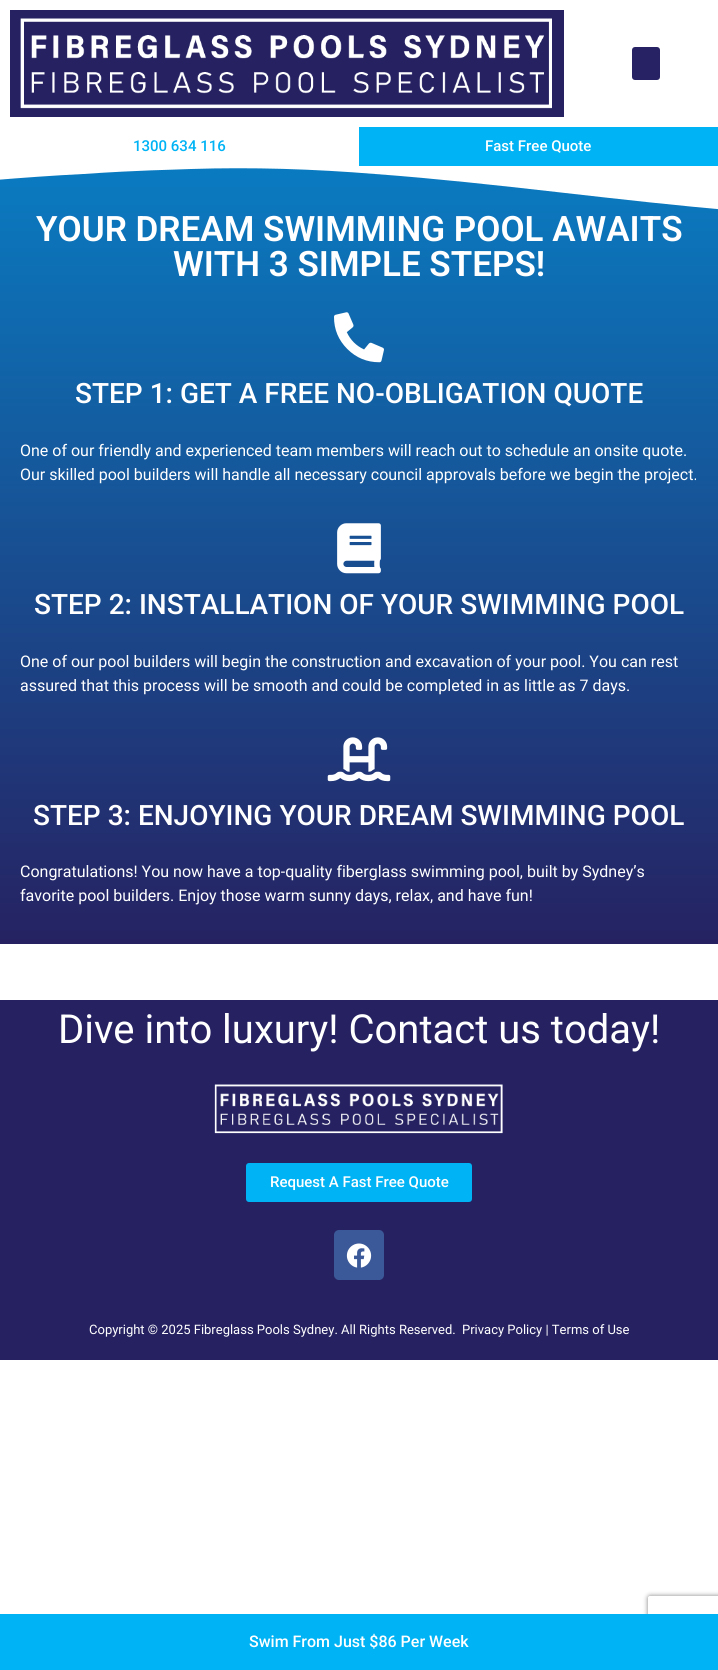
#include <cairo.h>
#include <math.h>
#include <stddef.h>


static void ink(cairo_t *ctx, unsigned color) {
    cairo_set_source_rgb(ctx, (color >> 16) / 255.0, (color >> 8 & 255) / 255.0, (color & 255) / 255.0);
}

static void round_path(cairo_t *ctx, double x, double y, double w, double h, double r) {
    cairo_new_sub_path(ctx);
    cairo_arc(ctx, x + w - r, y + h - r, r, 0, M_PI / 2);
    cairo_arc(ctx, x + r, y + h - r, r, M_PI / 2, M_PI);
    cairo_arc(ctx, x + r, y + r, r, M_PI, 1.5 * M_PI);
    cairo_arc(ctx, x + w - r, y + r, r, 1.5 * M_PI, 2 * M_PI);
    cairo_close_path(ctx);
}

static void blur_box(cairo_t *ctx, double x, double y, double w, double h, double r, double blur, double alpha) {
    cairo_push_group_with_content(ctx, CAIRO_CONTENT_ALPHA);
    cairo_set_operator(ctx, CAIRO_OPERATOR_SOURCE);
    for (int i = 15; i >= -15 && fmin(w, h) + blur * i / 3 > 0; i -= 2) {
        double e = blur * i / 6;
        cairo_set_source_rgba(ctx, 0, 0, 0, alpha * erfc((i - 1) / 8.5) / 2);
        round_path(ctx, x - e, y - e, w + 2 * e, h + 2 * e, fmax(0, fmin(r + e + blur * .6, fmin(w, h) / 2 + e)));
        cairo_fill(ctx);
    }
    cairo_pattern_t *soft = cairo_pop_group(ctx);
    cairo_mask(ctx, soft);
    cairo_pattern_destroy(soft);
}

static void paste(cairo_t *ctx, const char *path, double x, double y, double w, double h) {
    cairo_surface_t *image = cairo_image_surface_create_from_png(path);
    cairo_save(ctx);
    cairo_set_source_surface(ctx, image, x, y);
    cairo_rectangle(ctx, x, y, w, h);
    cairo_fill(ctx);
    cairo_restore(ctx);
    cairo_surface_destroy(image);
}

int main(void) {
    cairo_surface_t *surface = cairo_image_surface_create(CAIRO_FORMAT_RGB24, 718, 1670);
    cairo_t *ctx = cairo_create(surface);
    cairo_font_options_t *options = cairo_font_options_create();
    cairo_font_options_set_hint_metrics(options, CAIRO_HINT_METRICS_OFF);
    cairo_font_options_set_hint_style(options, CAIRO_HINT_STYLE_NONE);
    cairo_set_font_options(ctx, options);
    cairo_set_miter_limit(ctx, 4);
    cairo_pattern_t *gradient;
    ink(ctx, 0xFFFFFF);
    cairo_paint(ctx);
    paste(ctx, "media/1.png", 10, 10, 554, 107);
    ink(ctx, 0x272263);
    round_path(ctx, 632, 47, 28, 33, 3);
    cairo_fill(ctx);
    cairo_select_font_face(ctx, "Roboto Medium", CAIRO_FONT_SLANT_NORMAL, CAIRO_FONT_WEIGHT_NORMAL);
    cairo_set_font_size(ctx, 15);
    ink(ctx, 0x00B3F5);
    cairo_move_to(ctx, 133, 151);
    cairo_show_text(ctx, "1300 634 116");
    gradient = cairo_pattern_create_linear(359, 166, 359, 944);
    cairo_pattern_add_color_stop_rgba(gradient, 0, 0.039, 0.482, 0.757, 1);
    cairo_pattern_add_color_stop_rgba(gradient, 1, 0.149, 0.133, 0.384, 1);
    cairo_set_source(ctx, gradient);
    cairo_pattern_destroy(gradient);
    cairo_rectangle(ctx, 0, 168, 718, 776);
    cairo_fill(ctx);
    ink(ctx, 0xFFFFFF);
    cairo_new_path(ctx);
    cairo_move_to(ctx, 191, 169);
    cairo_curve_to(ctx, 252, 167, 314, 169, 375, 174);
    cairo_curve_to(ctx, 497, 183, 618, 201, 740, 211);
    cairo_curve_to(ctx, 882, 222, 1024, 227, 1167, 223);
    cairo_curve_to(ctx, 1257, 221, 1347, 216, 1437, 206);
    cairo_line_to(ctx, 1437, 165);
    cairo_line_to(ctx, -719, 165);
    cairo_line_to(ctx, -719, 183);
    cairo_curve_to(ctx, -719, 183, -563, 203, -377, 201);
    cairo_curve_to(ctx, -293, 201, -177, 197, -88, 188);
    cairo_curve_to(ctx, -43, 183, 24, 177, 83, 174);
    cairo_curve_to(ctx, 142, 170, 168, 170, 191, 169);
    cairo_close_path(ctx);
    cairo_fill(ctx);
    ink(ctx, 0x00B3F5);
    cairo_rectangle(ctx, 359, 127, 359, 39);
    cairo_fill(ctx);
    ink(ctx, 0xFFFFFF);
    cairo_move_to(ctx, 485, 151);
    cairo_show_text(ctx, "Fast Free Quote");
    cairo_select_font_face(ctx, "Roboto SemiBold", CAIRO_FONT_SLANT_NORMAL, CAIRO_FONT_WEIGHT_NORMAL);
    cairo_set_font_size(ctx, 35);
    cairo_move_to(ctx, 36, 241);
    cairo_show_text(ctx, "YOUR DREAM SWIMMING POOL AWAITS");
    cairo_move_to(ctx, 173, 276);
    cairo_show_text(ctx, "WITH 3 SIMPLE STEPS!");
    paste(ctx, "media/2.png", 334, 312, 50, 51);
    cairo_select_font_face(ctx, "Roboto Medium", CAIRO_FONT_SLANT_NORMAL, CAIRO_FONT_WEIGHT_NORMAL);
    cairo_set_font_size(ctx, 28);
    cairo_move_to(ctx, 75, 403);
    cairo_show_text(ctx, "STEP 1: GET A FREE NO-OBLIGATION QUOTE");
    cairo_select_font_face(ctx, "Roboto", CAIRO_FONT_SLANT_NORMAL, CAIRO_FONT_WEIGHT_NORMAL);
    cairo_set_font_size(ctx, 16);
    cairo_move_to(ctx, 20, 456);
    cairo_show_text(ctx, "One of our friendly and experienced team members will reach out to schedule an onsite quote.");
    cairo_move_to(ctx, 20, 480);
    cairo_show_text(ctx, "Our skilled pool builders will handle all necessary council approvals before we begin the project.");
    paste(ctx, "media/3.png", 337, 523, 44, 51);
    cairo_select_font_face(ctx, "Roboto Medium", CAIRO_FONT_SLANT_NORMAL, CAIRO_FONT_WEIGHT_NORMAL);
    cairo_set_font_size(ctx, 28);
    cairo_move_to(ctx, 34, 614);
    cairo_show_text(ctx, "STEP 2: INSTALLATION OF YOUR SWIMMING POOL");
    cairo_select_font_face(ctx, "Roboto", CAIRO_FONT_SLANT_NORMAL, CAIRO_FONT_WEIGHT_NORMAL);
    cairo_set_font_size(ctx, 16);
    cairo_move_to(ctx, 20, 667);
    cairo_show_text(ctx, "One of our pool builders will begin the construction and excavation of your pool. You can rest");
    cairo_move_to(ctx, 20, 691);
    cairo_show_text(ctx, "assured that this process will be smooth and could be completed in as little as 7 days.");
    paste(ctx, "media/4.png", 327, 737, 64, 45);
    cairo_select_font_face(ctx, "Roboto Medium", CAIRO_FONT_SLANT_NORMAL, CAIRO_FONT_WEIGHT_NORMAL);
    cairo_set_font_size(ctx, 28);
    cairo_move_to(ctx, 33, 825);
    cairo_show_text(ctx, "STEP 3: ENJOYING YOUR DREAM SWIMMING POOL");
    cairo_select_font_face(ctx, "Roboto", CAIRO_FONT_SLANT_NORMAL, CAIRO_FONT_WEIGHT_NORMAL);
    cairo_set_font_size(ctx, 16);
    cairo_move_to(ctx, 20, 877);
    cairo_show_text(ctx, "Congratulations! You now have a top-quality fiberglass swimming pool, built by Sydney’s");
    cairo_move_to(ctx, 20, 901);
    cairo_show_text(ctx, "favorite pool builders. Enjoy those warm sunny days, relax, and have fun!");
    ink(ctx, 0x262262);
    cairo_rectangle(ctx, 0, 1000, 718, 360);
    cairo_fill(ctx);
    cairo_set_font_size(ctx, 40);
    ink(ctx, 0xFFFFFF);
    cairo_move_to(ctx, 58, 1043);
    cairo_show_text(ctx, "Dive into luxury! Contact us today!");
    paste(ctx, "media/5.png", 214, 1084, 289, 50);
    ink(ctx, 0x00B3F5);
    round_path(ctx, 246, 1163, 226, 39, 3);
    cairo_fill(ctx);
    cairo_select_font_face(ctx, "Roboto Medium", CAIRO_FONT_SLANT_NORMAL, CAIRO_FONT_WEIGHT_NORMAL);
    cairo_set_font_size(ctx, 15);
    ink(ctx, 0xFFFFFF);
    cairo_move_to(ctx, 270, 1187);
    cairo_show_text(ctx, "Request A Fast Free Quote");
    ink(ctx, 0x3B5998);
    round_path(ctx, 334, 1230, 50, 50, 5);
    cairo_fill(ctx);
    paste(ctx, "media/6.png", 346, 1243, 26, 25);
    cairo_select_font_face(ctx, "Roboto", CAIRO_FONT_SLANT_NORMAL, CAIRO_FONT_WEIGHT_NORMAL);
    cairo_set_font_size(ctx, 13);
    ink(ctx, 0xFFFFFF);
    cairo_move_to(ctx, 89, 1334);
    cairo_show_text(ctx, "Copyright © 2025 Fibreglass Pools Sydney. All Rights Reserved.");
    cairo_move_to(ctx, 462, 1334);
    cairo_show_text(ctx, "Privacy Policy | Terms of Use");
    cairo_save(ctx);
    cairo_set_fill_rule(ctx, CAIRO_FILL_RULE_EVEN_ODD);
    cairo_new_path(ctx);
    cairo_move_to(ctx, 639, 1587);
    cairo_line_to(ctx, 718, 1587);
    cairo_line_to(ctx, 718, 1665);
    cairo_line_to(ctx, 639, 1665);
    cairo_close_path(ctx);
    cairo_move_to(ctx, 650, 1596);
    cairo_line_to(ctx, 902, 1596);
    cairo_curve_to(ctx, 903, 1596, 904, 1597, 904, 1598);
    cairo_line_to(ctx, 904, 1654);
    cairo_curve_to(ctx, 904, 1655, 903, 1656, 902, 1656);
    cairo_line_to(ctx, 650, 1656);
    cairo_curve_to(ctx, 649, 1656, 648, 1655, 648, 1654);
    cairo_line_to(ctx, 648, 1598);
    cairo_curve_to(ctx, 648, 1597, 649, 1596, 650, 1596);
    cairo_close_path(ctx);
    cairo_clip(ctx);
    ink(ctx, 0x808080);
    blur_box(ctx, 648, 1596, 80, 60, 2, 2.5, 1);
    cairo_restore(ctx);
    ink(ctx, 0x00B3F5);
    cairo_rectangle(ctx, 0, 1614, 718, 56);
    cairo_fill(ctx);
    cairo_select_font_face(ctx, "Roboto Medium", CAIRO_FONT_SLANT_NORMAL, CAIRO_FONT_WEIGHT_NORMAL);
    cairo_set_font_size(ctx, 16);
    ink(ctx, 0xFFFFFF);
    cairo_move_to(ctx, 249, 1647);
    cairo_show_text(ctx, "Swim From Just $86 Per Week");
    cairo_surface_write_to_png(surface, "image.png");
    cairo_font_options_destroy(options);
    cairo_destroy(ctx);
    cairo_surface_destroy(surface);
    return 0;
}
